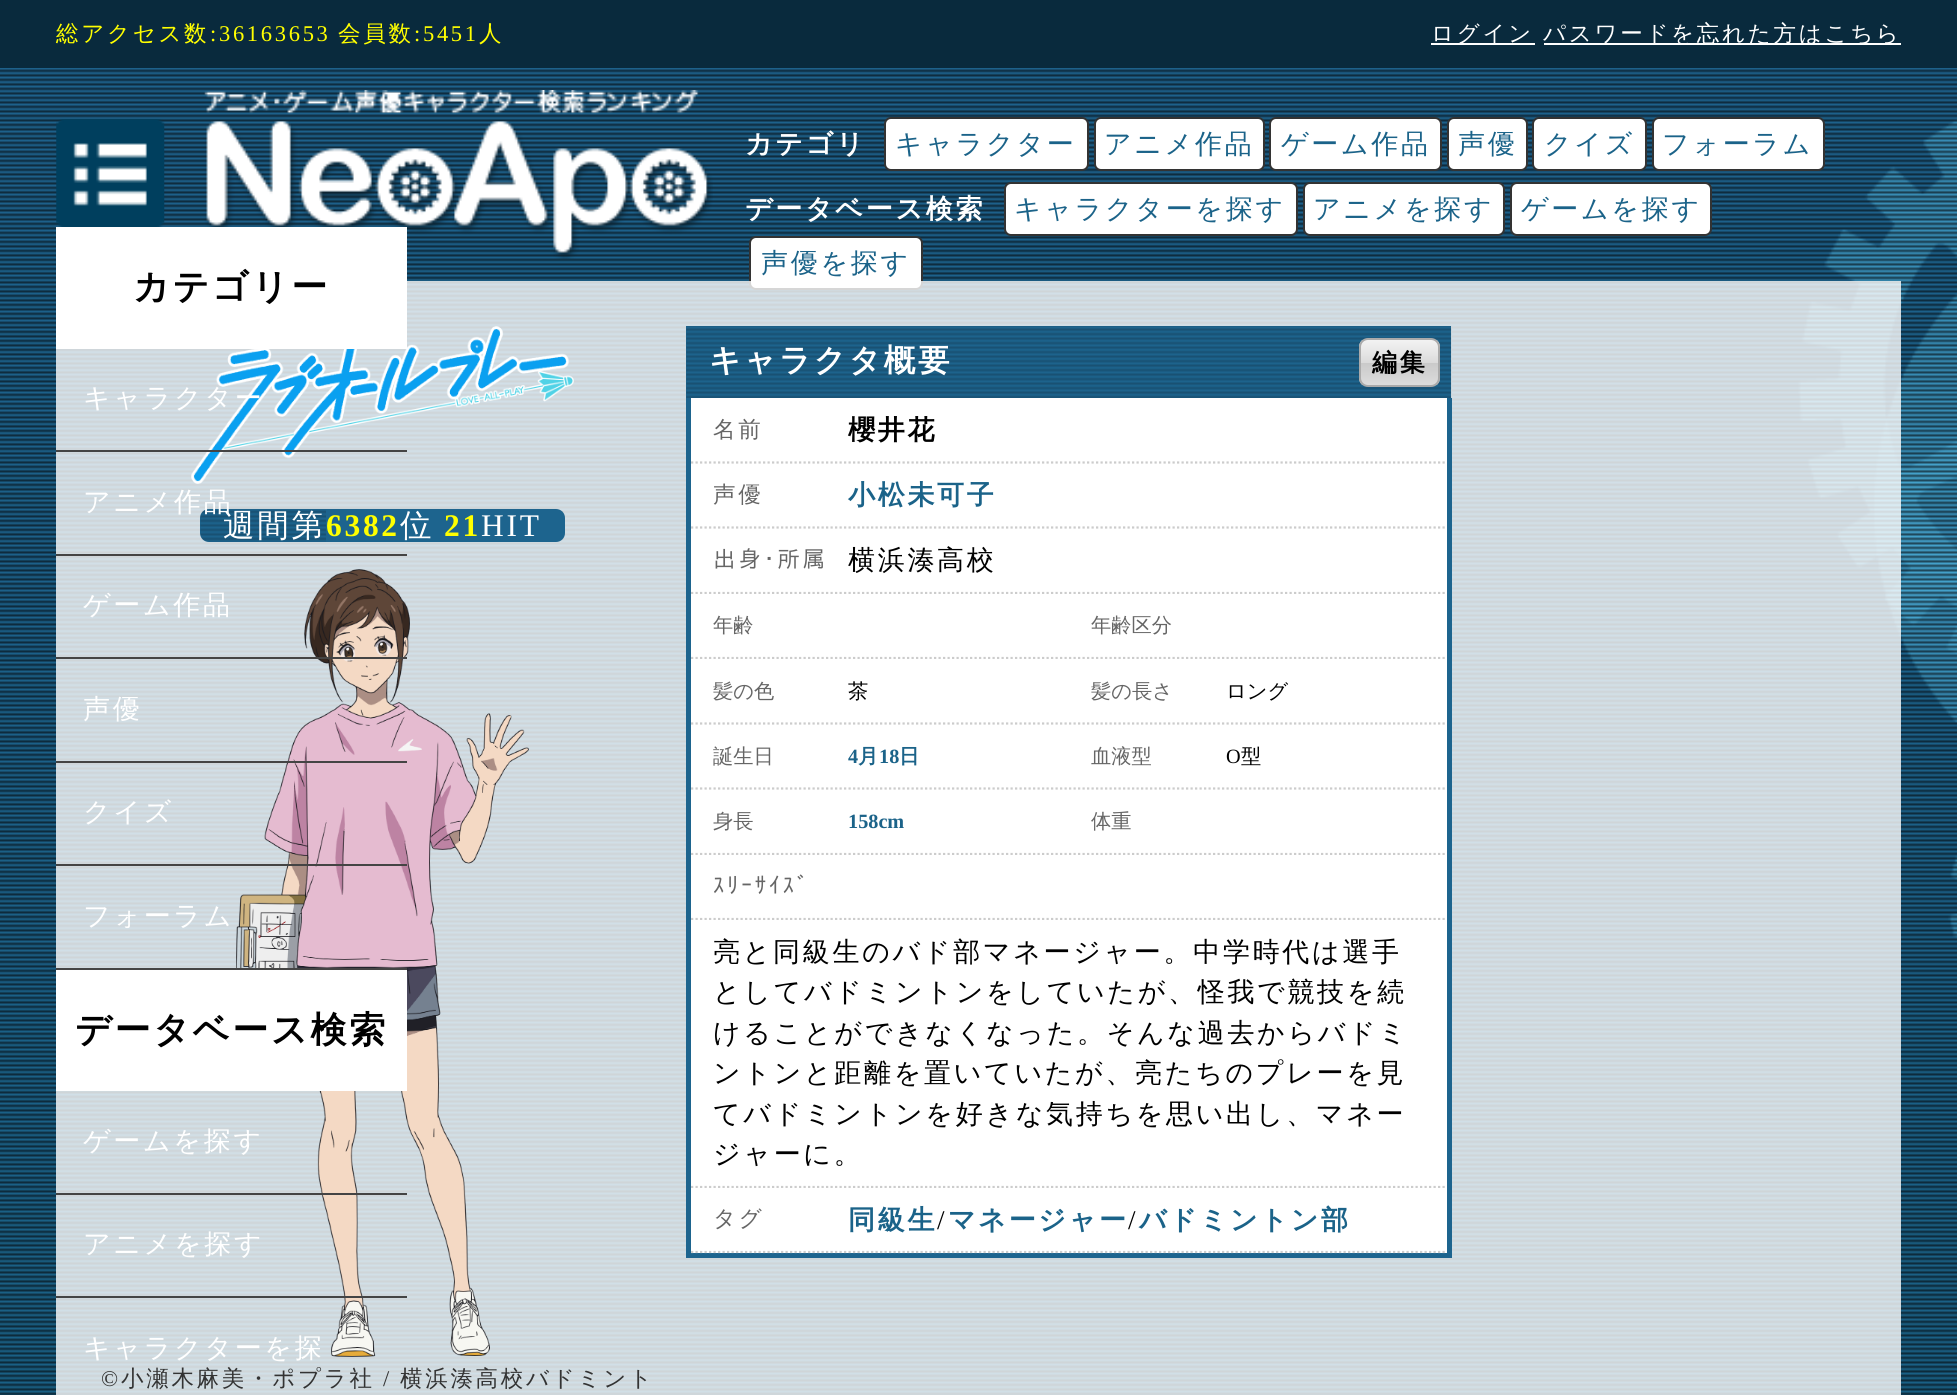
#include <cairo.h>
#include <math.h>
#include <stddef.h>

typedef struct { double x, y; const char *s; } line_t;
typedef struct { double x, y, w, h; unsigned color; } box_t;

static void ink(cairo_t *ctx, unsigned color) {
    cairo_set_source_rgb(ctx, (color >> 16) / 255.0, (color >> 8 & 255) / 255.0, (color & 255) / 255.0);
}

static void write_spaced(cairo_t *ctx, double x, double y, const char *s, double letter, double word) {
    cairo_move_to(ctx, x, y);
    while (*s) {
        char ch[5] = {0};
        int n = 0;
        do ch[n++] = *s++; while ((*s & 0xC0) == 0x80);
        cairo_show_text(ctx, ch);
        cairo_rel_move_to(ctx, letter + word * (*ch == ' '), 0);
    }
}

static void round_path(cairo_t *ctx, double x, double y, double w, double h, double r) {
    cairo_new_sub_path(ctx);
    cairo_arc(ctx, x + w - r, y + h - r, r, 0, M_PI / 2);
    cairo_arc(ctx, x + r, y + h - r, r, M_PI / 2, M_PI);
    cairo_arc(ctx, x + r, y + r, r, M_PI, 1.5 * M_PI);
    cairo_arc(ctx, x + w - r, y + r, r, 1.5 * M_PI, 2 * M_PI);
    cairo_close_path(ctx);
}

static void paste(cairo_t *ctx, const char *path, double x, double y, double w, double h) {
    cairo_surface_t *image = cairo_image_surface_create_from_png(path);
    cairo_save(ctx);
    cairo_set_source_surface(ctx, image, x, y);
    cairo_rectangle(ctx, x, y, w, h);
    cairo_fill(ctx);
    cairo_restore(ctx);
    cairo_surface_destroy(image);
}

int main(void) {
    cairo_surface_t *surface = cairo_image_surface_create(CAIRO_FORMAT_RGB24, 1957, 1395);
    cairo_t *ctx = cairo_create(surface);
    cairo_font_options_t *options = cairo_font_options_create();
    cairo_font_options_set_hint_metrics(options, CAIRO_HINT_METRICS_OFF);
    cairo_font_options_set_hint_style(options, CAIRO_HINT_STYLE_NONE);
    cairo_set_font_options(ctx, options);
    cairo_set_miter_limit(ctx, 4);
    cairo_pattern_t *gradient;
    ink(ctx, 0xFFFFFF);
    cairo_paint(ctx);
    gradient = cairo_pattern_create_linear(979, 0, 979, 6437);
    cairo_pattern_add_color_stop_rgba(gradient, 0, 0.118, 0.392, 0.565, 1);
    cairo_pattern_add_color_stop_rgba(gradient, 1, 0.051, 0.369, 0.427, 1);
    cairo_set_source(ctx, gradient);
    cairo_pattern_destroy(gradient);
    cairo_rectangle(ctx, 0, 68, 1957, 1327);
    cairo_fill(ctx);
    ink(ctx, 0x092A3D);
    cairo_rectangle(ctx, 0, 0, 1957, 68);
    cairo_fill(ctx);
    cairo_select_font_face(ctx, "WenQuanYi Zen Hei Medium", CAIRO_FONT_SLANT_NORMAL, CAIRO_FONT_WEIGHT_NORMAL);
    cairo_set_font_size(ctx, 22.5);
    ink(ctx, 0xFFFF00);
    write_spaced(ctx, 56, 41, "総アクセス数", 2.7, 0);
    cairo_select_font_face(ctx, "Liberation Serif", CAIRO_FONT_SLANT_NORMAL, CAIRO_FONT_WEIGHT_NORMAL);
    write_spaced(ctx, 210, 41, ":36163653", 2.7, 0);
    cairo_select_font_face(ctx, "WenQuanYi Zen Hei Medium", CAIRO_FONT_SLANT_NORMAL, CAIRO_FONT_WEIGHT_NORMAL);
    write_spaced(ctx, 338, 41, "会員数", 2.7, 0);
    cairo_select_font_face(ctx, "Liberation Serif", CAIRO_FONT_SLANT_NORMAL, CAIRO_FONT_WEIGHT_NORMAL);
    write_spaced(ctx, 414, 41, ":5451", 2.7, 0);
    cairo_select_font_face(ctx, "WenQuanYi Zen Hei Medium", CAIRO_FONT_SLANT_NORMAL, CAIRO_FONT_WEIGHT_NORMAL);
    write_spaced(ctx, 479, 41, "人", 2.7, 0);
    ink(ctx, 0xFFFFFF);
    cairo_rectangle(ctx, 1431, 43, 104, 2);
    cairo_fill(ctx);
    write_spaced(ctx, 1431, 41, "ログイン", 2.7, 0);
    cairo_rectangle(ctx, 1544, 43, 357, 2);
    cairo_fill(ctx);
    write_spaced(ctx, 1543, 41, "パスワードを忘れた方はこちら", 2.7, 0);
    paste(ctx, "media/1.png", 1798, 119, 159, 820);
    paste(ctx, "media/2.png", 0, 68, 1957, 1327);
    paste(ctx, "media/3.png", 204, 90, 509, 169);
    cairo_select_font_face(ctx, "WenQuanYi Zen Hei", CAIRO_FONT_SLANT_NORMAL, CAIRO_FONT_WEIGHT_BOLD);
    cairo_set_font_size(ctx, 27);
    write_spaced(ctx, 745, 153, "カテゴリ", 2.7, 0);
    round_path(ctx, 885, 118, 203, 52, 6);
    cairo_fill_preserve(ctx);
    ink(ctx, 0x333333);
    cairo_stroke(ctx);
    cairo_select_font_face(ctx, "WenQuanYi Zen Hei Medium", CAIRO_FONT_SLANT_NORMAL, CAIRO_FONT_WEIGHT_NORMAL);
    ink(ctx, 0x1B6389);
    write_spaced(ctx, 895, 153, "キャラクター", 2.7, 0);
    ink(ctx, 0xFFFFFF);
    round_path(ctx, 1095, 118, 169, 52, 6);
    cairo_fill_preserve(ctx);
    ink(ctx, 0x333333);
    cairo_stroke(ctx);
    ink(ctx, 0x1B6389);
    write_spaced(ctx, 1104, 153, "アニメ作品", 2.7, 0);
    ink(ctx, 0xFFFFFF);
    round_path(ctx, 1270, 118, 171, 52, 6);
    cairo_fill_preserve(ctx);
    ink(ctx, 0x333333);
    cairo_stroke(ctx);
    ink(ctx, 0x1B6389);
    write_spaced(ctx, 1281, 153, "ゲーム作品", 2.7, 0);
    ink(ctx, 0xFFFFFF);
    round_path(ctx, 1448, 118, 79, 52, 6);
    cairo_fill_preserve(ctx);
    ink(ctx, 0x333333);
    cairo_stroke(ctx);
    ink(ctx, 0x1B6389);
    write_spaced(ctx, 1458, 153, "声優", 2.7, 0);
    ink(ctx, 0xFFFFFF);
    round_path(ctx, 1533, 118, 113, 52, 6);
    cairo_fill_preserve(ctx);
    ink(ctx, 0x333333);
    cairo_stroke(ctx);
    ink(ctx, 0x1B6389);
    write_spaced(ctx, 1544, 153, "クイズ", 2.7, 0);
    ink(ctx, 0xFFFFFF);
    round_path(ctx, 1653, 118, 171, 52, 6);
    cairo_fill_preserve(ctx);
    ink(ctx, 0x333333);
    cairo_stroke(ctx);
    ink(ctx, 0x1B6389);
    write_spaced(ctx, 1662, 153, "フォーラム", 2.7, 0);
    cairo_select_font_face(ctx, "WenQuanYi Zen Hei", CAIRO_FONT_SLANT_NORMAL, CAIRO_FONT_WEIGHT_BOLD);
    ink(ctx, 0xFFFFFF);
    write_spaced(ctx, 745, 218, "データベース検索", 2.7, 0);
    round_path(ctx, 1005, 183, 292, 52, 6);
    cairo_fill_preserve(ctx);
    ink(ctx, 0x333333);
    cairo_stroke(ctx);
    cairo_select_font_face(ctx, "WenQuanYi Zen Hei Medium", CAIRO_FONT_SLANT_NORMAL, CAIRO_FONT_WEIGHT_NORMAL);
    ink(ctx, 0x1B6389);
    write_spaced(ctx, 1014, 218, "キャラクターを探す", 2.7, 0);
    ink(ctx, 0xFFFFFF);
    round_path(ctx, 1304, 183, 200, 52, 6);
    cairo_fill_preserve(ctx);
    ink(ctx, 0x333333);
    cairo_stroke(ctx);
    ink(ctx, 0x1B6389);
    write_spaced(ctx, 1313, 218, "アニメを探す", 2.7, 0);
    ink(ctx, 0xFFFFFF);
    round_path(ctx, 1511, 183, 200, 52, 6);
    cairo_fill_preserve(ctx);
    ink(ctx, 0x333333);
    cairo_stroke(ctx);
    ink(ctx, 0x1B6389);
    write_spaced(ctx, 1521, 218, "ゲームを探す", 2.7, 0);
    ink(ctx, 0xFFFFFF);
    round_path(ctx, 750, 237, 172, 52, 6);
    cairo_fill_preserve(ctx);
    ink(ctx, 0x333333);
    cairo_stroke(ctx);
    ink(ctx, 0x1B6389);
    write_spaced(ctx, 761, 272, "声優を探す", 2.7, 0);
    cairo_set_source_rgba(ctx, 1, 1, 1, 0.8);
    cairo_rectangle(ctx, 56, 281, 1845, 1114);
    cairo_fill(ctx);
    paste(ctx, "media/4.png", 56, 119, 109, 108);
    paste(ctx, "media/5.png", 191, 326, 383, 158);
    ink(ctx, 0xFFFFFF);
    cairo_rectangle(ctx, 56, 227, 351, 122);
    cairo_fill(ctx);
    cairo_select_font_face(ctx, "WenQuanYi Zen Hei", CAIRO_FONT_SLANT_NORMAL, CAIRO_FONT_WEIGHT_BOLD);
    cairo_set_font_size(ctx, 36);
    ink(ctx, 0x000000);
    write_spaced(ctx, 133, 299, "カテゴリー", 2.7, 0);
    ink(ctx, 0x444444);
    cairo_rectangle(ctx, 56, 450, 351, 2);
    cairo_fill(ctx);
    cairo_select_font_face(ctx, "WenQuanYi Zen Hei Medium", CAIRO_FONT_SLANT_NORMAL, CAIRO_FONT_WEIGHT_NORMAL);
    cairo_set_font_size(ctx, 27);
    ink(ctx, 0xFFFFFF);
    write_spaced(ctx, 83, 407, "キャラクター", 2.7, 0);
    ink(ctx, 0x444444);
    cairo_rectangle(ctx, 56, 554, 351, 2);
    cairo_fill(ctx);
    ink(ctx, 0x1D648E);
    cairo_new_path(ctx);
    cairo_move_to(ctx, 209, 509);
    cairo_line_to(ctx, 326, 509);
    cairo_line_to(ctx, 326, 542);
    cairo_line_to(ctx, 209, 542);
    cairo_curve_to(ctx, 204, 542, 200, 538, 200, 533);
    cairo_line_to(ctx, 200, 518);
    cairo_curve_to(ctx, 200, 513, 204, 509, 209, 509);
    cairo_close_path(ctx);
    cairo_fill(ctx);
    paste(ctx, "media/6.png", 200, 508, 365, 34);
    ink(ctx, 0xFFFFFF);
    write_spaced(ctx, 83, 511, "アニメ作品", 2.7, 0);
    paste(ctx, "media/7.png", 236, 569, 293, 788);
    ink(ctx, 0x444444);
    cairo_rectangle(ctx, 56, 657, 351, 2);
    cairo_fill(ctx);
    ink(ctx, 0xFFFFFF);
    write_spaced(ctx, 83, 614, "ゲーム作品", 2.7, 0);
    ink(ctx, 0x444444);
    cairo_rectangle(ctx, 56, 761, 351, 2);
    cairo_fill(ctx);
    ink(ctx, 0xFFFFFF);
    write_spaced(ctx, 83, 718, "声優", 2.7, 0);
    ink(ctx, 0x444444);
    cairo_rectangle(ctx, 56, 864, 351, 2);
    cairo_fill(ctx);
    ink(ctx, 0xFFFFFF);
    write_spaced(ctx, 83, 821, "クイズ", 2.7, 0);
    ink(ctx, 0x444444);
    cairo_rectangle(ctx, 56, 968, 351, 2);
    cairo_fill(ctx);
    ink(ctx, 0xFFFFFF);
    write_spaced(ctx, 83, 925, "フォーラム", 2.7, 0);
    cairo_rectangle(ctx, 56, 970, 351, 121);
    cairo_fill(ctx);
    cairo_select_font_face(ctx, "WenQuanYi Zen Hei", CAIRO_FONT_SLANT_NORMAL, CAIRO_FONT_WEIGHT_BOLD);
    cairo_set_font_size(ctx, 36);
    ink(ctx, 0x000000);
    write_spaced(ctx, 75, 1042, "データベース検索", 2.7, 0);
    ink(ctx, 0x444444);
    cairo_rectangle(ctx, 56, 1193, 351, 2);
    cairo_fill(ctx);
    cairo_select_font_face(ctx, "WenQuanYi Zen Hei Medium", CAIRO_FONT_SLANT_NORMAL, CAIRO_FONT_WEIGHT_NORMAL);
    cairo_set_font_size(ctx, 27);
    ink(ctx, 0xFFFFFF);
    write_spaced(ctx, 83, 1150, "ゲームを探す", 2.7, 0);
    ink(ctx, 0x444444);
    cairo_rectangle(ctx, 56, 1296, 351, 2);
    cairo_fill(ctx);
    ink(ctx, 0xFFFFFF);
    write_spaced(ctx, 83, 1253, "アニメを探す", 2.7, 0);
    write_spaced(ctx, 83, 1357, "キャラクターを探", 2.7, 0);
    cairo_set_font_size(ctx, 31.5);
    write_spaced(ctx, 223, 536, "週間第", 2.7, 0);
    ink(ctx, 0x1D648E);
    cairo_rectangle(ctx, 326, 509, 156, 33);
    cairo_fill(ctx);
    cairo_select_font_face(ctx, "Liberation Serif", CAIRO_FONT_SLANT_NORMAL, CAIRO_FONT_WEIGHT_BOLD);
    ink(ctx, 0xFFFF00);
    write_spaced(ctx, 326, 536, "6382", 2.7, 0);
    cairo_select_font_face(ctx, "WenQuanYi Zen Hei Medium", CAIRO_FONT_SLANT_NORMAL, CAIRO_FONT_WEIGHT_NORMAL);
    ink(ctx, 0xFFFFFF);
    write_spaced(ctx, 400, 536, "位", 2.7, 0);
    cairo_select_font_face(ctx, "Liberation Serif", CAIRO_FONT_SLANT_NORMAL, CAIRO_FONT_WEIGHT_BOLD);
    ink(ctx, 0xFFFF00);
    write_spaced(ctx, 444, 536, "21", 2.7, 0);
    ink(ctx, 0x1D648E);
    cairo_new_path(ctx);
    cairo_move_to(ctx, 482, 509);
    cairo_line_to(ctx, 556, 509);
    cairo_curve_to(ctx, 561, 509, 565, 513, 565, 518);
    cairo_line_to(ctx, 565, 533);
    cairo_curve_to(ctx, 565, 538, 561, 542, 556, 542);
    cairo_line_to(ctx, 482, 542);
    cairo_close_path(ctx);
    cairo_fill(ctx);
    cairo_select_font_face(ctx, "Liberation Serif", CAIRO_FONT_SLANT_NORMAL, CAIRO_FONT_WEIGHT_NORMAL);
    ink(ctx, 0xFFFFFF);
    write_spaced(ctx, 481, 536, "HIT", 2.7, 0);
    cairo_set_font_size(ctx, 22.5);
    ink(ctx, 0x333333);
    write_spaced(ctx, 101, 1386, "©", 2.7, 0);
    cairo_select_font_face(ctx, "WenQuanYi Zen Hei Medium", CAIRO_FONT_SLANT_NORMAL, CAIRO_FONT_WEIGHT_NORMAL);
    write_spaced(ctx, 121, 1386, "小瀬木麻美・ポプラ社", 2.7, 0);
    cairo_select_font_face(ctx, "Liberation Serif", CAIRO_FONT_SLANT_NORMAL, CAIRO_FONT_WEIGHT_NORMAL);
    write_spaced(ctx, 383, 1386, "/", 2.7, 0);
    cairo_select_font_face(ctx, "WenQuanYi Zen Hei Medium", CAIRO_FONT_SLANT_NORMAL, CAIRO_FONT_WEIGHT_NORMAL);
    write_spaced(ctx, 400, 1386, "横浜湊高校バドミント", 2.7, 0);
    ink(ctx, 0x1D648E);
    cairo_rectangle(ctx, 686, 326, 765, 72);
    cairo_fill(ctx);
    paste(ctx, "media/8.png", 686, 326, 766, 72);
    cairo_select_font_face(ctx, "WenQuanYi Zen Hei", CAIRO_FONT_SLANT_NORMAL, CAIRO_FONT_WEIGHT_BOLD);
    cairo_set_font_size(ctx, 31.5);
    ink(ctx, 0xFFFFFF);
    write_spaced(ctx, 709, 371, "キャラクタ概要", 2.7, 0);
    cairo_save(ctx);
    round_path(ctx, 1359, 338, 81, 49, 9);
    cairo_clip(ctx);
    gradient = cairo_pattern_create_linear(1400, 340, 1400, 385);
    cairo_pattern_add_color_stop_rgba(gradient, 0, 0.953, 0.953, 0.953, 1);
    cairo_pattern_add_color_stop_rgba(gradient, 0.5, 0.859, 0.859, 0.859, 1);
    cairo_pattern_add_color_stop_rgba(gradient, 0.51, 0.792, 0.792, 0.792, 1);
    cairo_pattern_add_color_stop_rgba(gradient, 1, 0.863, 0.863, 0.863, 1);
    cairo_set_source(ctx, gradient);
    cairo_pattern_destroy(gradient);
    cairo_rectangle(ctx, 1359, 340, 81, 45);
    cairo_fill(ctx);
    cairo_restore(ctx);
    round_path(ctx, 1360, 339, 79, 47, 8);
    ink(ctx, 0xAAAAAA);
    cairo_stroke(ctx);
    cairo_set_font_size(ctx, 25);
    ink(ctx, 0x000000);
    write_spaced(ctx, 1372, 371, "編集", 2.7, 0);
    {
        static const box_t items[] = {
            {691, 398, 756, 196, 0xFFFFFF},
            {1447, 398, 5, 392, 0x1D648E},
            {686, 398, 5, 392, 0x1D648E},
        };
        for (size_t i = 0; i < sizeof items / sizeof *items; i++) {
            ink(ctx, items[i].color);
            cairo_rectangle(ctx, items[i].x, items[i].y, items[i].w, items[i].h);
            cairo_fill(ctx);
        }
    }
    cairo_select_font_face(ctx, "WenQuanYi Zen Hei Medium", CAIRO_FONT_SLANT_NORMAL, CAIRO_FONT_WEIGHT_NORMAL);
    cairo_set_font_size(ctx, 22.5);
    ink(ctx, 0x666666);
    write_spaced(ctx, 713, 437, "名前", 2.7, 0);
    cairo_new_path(ctx);
    cairo_move_to(ctx, 691, 462.5);
    cairo_line_to(ctx, 1447, 462.5);
    ink(ctx, 0xCCCCCC);
    cairo_set_line_width(ctx, 2.2);
    cairo_set_dash(ctx, (double[]){2.25, 2.25}, 2, 0);
    cairo_stroke(ctx);
    cairo_select_font_face(ctx, "WenQuanYi Zen Hei", CAIRO_FONT_SLANT_NORMAL, CAIRO_FONT_WEIGHT_BOLD);
    cairo_set_font_size(ctx, 27);
    ink(ctx, 0x000000);
    write_spaced(ctx, 848, 439, "櫻井花", 2.7, 0);
    cairo_select_font_face(ctx, "WenQuanYi Zen Hei Medium", CAIRO_FONT_SLANT_NORMAL, CAIRO_FONT_WEIGHT_NORMAL);
    cairo_set_font_size(ctx, 22.5);
    ink(ctx, 0x666666);
    write_spaced(ctx, 713, 502, "声優", 2.7, 0);
    cairo_new_path(ctx);
    cairo_move_to(ctx, 691, 527.5);
    cairo_line_to(ctx, 1447, 527.5);
    ink(ctx, 0xCCCCCC);
    cairo_stroke(ctx);
    cairo_select_font_face(ctx, "WenQuanYi Zen Hei", CAIRO_FONT_SLANT_NORMAL, CAIRO_FONT_WEIGHT_BOLD);
    cairo_set_font_size(ctx, 27);
    ink(ctx, 0x1B6389);
    write_spaced(ctx, 848, 504, "小松未可子", 2.7, 0);
    cairo_select_font_face(ctx, "IPAPGothic", CAIRO_FONT_SLANT_NORMAL, CAIRO_FONT_WEIGHT_NORMAL);
    cairo_set_font_size(ctx, 22.5);
    ink(ctx, 0x666666);
    write_spaced(ctx, 713, 567, "出身･所属", 2.7, 0);
    cairo_new_path(ctx);
    cairo_move_to(ctx, 691, 593);
    cairo_line_to(ctx, 1447, 593);
    ink(ctx, 0xCCCCCC);
    cairo_stroke(ctx);
    cairo_select_font_face(ctx, "WenQuanYi Zen Hei Medium", CAIRO_FONT_SLANT_NORMAL, CAIRO_FONT_WEIGHT_NORMAL);
    cairo_set_font_size(ctx, 27);
    ink(ctx, 0x000000);
    write_spaced(ctx, 848, 569, "横浜湊高校", 2.7, 0);
    ink(ctx, 0xFFFFFF);
    cairo_rectangle(ctx, 691, 594, 756, 65);
    cairo_fill(ctx);
    cairo_set_font_size(ctx, 20.25);
    ink(ctx, 0x666666);
    cairo_move_to(ctx, 713, 632);
    cairo_show_text(ctx, "年齢");
    cairo_new_path(ctx);
    cairo_move_to(ctx, 691, 658);
    cairo_line_to(ctx, 1069, 658);
    ink(ctx, 0xCCCCCC);
    cairo_stroke(ctx);
    ink(ctx, 0x666666);
    cairo_move_to(ctx, 1091, 632);
    cairo_show_text(ctx, "年齢区分");
    cairo_new_path(ctx);
    cairo_move_to(ctx, 1069, 658);
    cairo_line_to(ctx, 1447, 658);
    ink(ctx, 0xCCCCCC);
    cairo_stroke(ctx);
    ink(ctx, 0xFFFFFF);
    cairo_rectangle(ctx, 691, 659, 756, 66);
    cairo_fill(ctx);
    ink(ctx, 0x666666);
    cairo_move_to(ctx, 713, 698);
    cairo_show_text(ctx, "髪の色");
    cairo_new_path(ctx);
    cairo_move_to(ctx, 691, 723.5);
    cairo_line_to(ctx, 1069, 723.5);
    ink(ctx, 0xCCCCCC);
    cairo_stroke(ctx);
    ink(ctx, 0x000000);
    cairo_move_to(ctx, 848, 698);
    cairo_show_text(ctx, "茶");
    ink(ctx, 0x666666);
    cairo_move_to(ctx, 1091, 698);
    cairo_show_text(ctx, "髪の長さ");
    cairo_new_path(ctx);
    cairo_move_to(ctx, 1069, 723.5);
    cairo_line_to(ctx, 1447, 723.5);
    ink(ctx, 0xCCCCCC);
    cairo_stroke(ctx);
    ink(ctx, 0x000000);
    cairo_move_to(ctx, 1226, 698);
    cairo_show_text(ctx, "ロング");
    ink(ctx, 0xFFFFFF);
    cairo_rectangle(ctx, 691, 725, 756, 65);
    cairo_fill(ctx);
    ink(ctx, 0x666666);
    cairo_move_to(ctx, 713, 763);
    cairo_show_text(ctx, "誕生日");
    cairo_new_path(ctx);
    cairo_move_to(ctx, 691, 788.5);
    cairo_line_to(ctx, 1069, 788.5);
    ink(ctx, 0xCCCCCC);
    cairo_stroke(ctx);
    cairo_select_font_face(ctx, "Liberation Serif", CAIRO_FONT_SLANT_NORMAL, CAIRO_FONT_WEIGHT_BOLD);
    ink(ctx, 0x1B6389);
    cairo_move_to(ctx, 848, 763);
    cairo_show_text(ctx, "4");
    cairo_select_font_face(ctx, "WenQuanYi Zen Hei", CAIRO_FONT_SLANT_NORMAL, CAIRO_FONT_WEIGHT_BOLD);
    cairo_move_to(ctx, 858, 763);
    cairo_show_text(ctx, "月");
    cairo_select_font_face(ctx, "Liberation Serif", CAIRO_FONT_SLANT_NORMAL, CAIRO_FONT_WEIGHT_BOLD);
    cairo_move_to(ctx, 879, 763);
    cairo_show_text(ctx, "18");
    cairo_select_font_face(ctx, "WenQuanYi Zen Hei", CAIRO_FONT_SLANT_NORMAL, CAIRO_FONT_WEIGHT_BOLD);
    cairo_move_to(ctx, 899, 763);
    cairo_show_text(ctx, "日");
    cairo_select_font_face(ctx, "WenQuanYi Zen Hei Medium", CAIRO_FONT_SLANT_NORMAL, CAIRO_FONT_WEIGHT_NORMAL);
    ink(ctx, 0x666666);
    cairo_move_to(ctx, 1091, 763);
    cairo_show_text(ctx, "血液型");
    cairo_new_path(ctx);
    cairo_move_to(ctx, 1069, 788.5);
    cairo_line_to(ctx, 1447, 788.5);
    ink(ctx, 0xCCCCCC);
    cairo_stroke(ctx);
    cairo_select_font_face(ctx, "Liberation Serif", CAIRO_FONT_SLANT_NORMAL, CAIRO_FONT_WEIGHT_NORMAL);
    ink(ctx, 0x000000);
    cairo_move_to(ctx, 1226, 763);
    cairo_show_text(ctx, "O");
    cairo_select_font_face(ctx, "WenQuanYi Zen Hei Medium", CAIRO_FONT_SLANT_NORMAL, CAIRO_FONT_WEIGHT_NORMAL);
    cairo_move_to(ctx, 1241, 763);
    cairo_show_text(ctx, "型");
    ink(ctx, 0xFFFFFF);
    cairo_rectangle(ctx, 691, 790, 756, 65);
    cairo_fill(ctx);
    ink(ctx, 0x666666);
    cairo_move_to(ctx, 713, 828);
    cairo_show_text(ctx, "身長");
    cairo_save(ctx);
    cairo_rectangle(ctx, 691, 790, 378, 65);
    cairo_clip(ctx);
    cairo_new_path(ctx);
    cairo_move_to(ctx, 691, 854);
    cairo_line_to(ctx, 1069, 854);
    ink(ctx, 0xCCCCCC);
    cairo_stroke(ctx);
    cairo_restore(ctx);
    cairo_select_font_face(ctx, "Liberation Serif", CAIRO_FONT_SLANT_NORMAL, CAIRO_FONT_WEIGHT_BOLD);
    ink(ctx, 0x1B6389);
    cairo_move_to(ctx, 848, 828);
    cairo_show_text(ctx, "158cm");
    cairo_select_font_face(ctx, "WenQuanYi Zen Hei Medium", CAIRO_FONT_SLANT_NORMAL, CAIRO_FONT_WEIGHT_NORMAL);
    ink(ctx, 0x666666);
    cairo_move_to(ctx, 1091, 828);
    cairo_show_text(ctx, "体重");
    cairo_save(ctx);
    cairo_rectangle(ctx, 1069, 790, 378, 65);
    cairo_clip(ctx);
    cairo_new_path(ctx);
    cairo_move_to(ctx, 1069, 854);
    cairo_line_to(ctx, 1447, 854);
    ink(ctx, 0xCCCCCC);
    cairo_stroke(ctx);
    cairo_restore(ctx);
    {
        static const box_t items[] = {
            {691, 855, 756, 65, 0xFFFFFF},
            {1447, 790, 5, 468, 0x1D648E},
            {686, 790, 5, 398, 0x1D648E},
        };
        for (size_t i = 0; i < sizeof items / sizeof *items; i++) {
            ink(ctx, items[i].color);
            cairo_rectangle(ctx, items[i].x, items[i].y, items[i].w, items[i].h);
            cairo_fill(ctx);
        }
    }
    cairo_select_font_face(ctx, "IPAPGothic", CAIRO_FONT_SLANT_NORMAL, CAIRO_FONT_WEIGHT_NORMAL);
    cairo_set_font_size(ctx, 22.5);
    ink(ctx, 0x666666);
    write_spaced(ctx, 713, 893, "ｽﾘｰｻｲｽﾞ", 2.7, 0);
    cairo_new_path(ctx);
    cairo_move_to(ctx, 691, 919);
    cairo_line_to(ctx, 1447, 919);
    ink(ctx, 0xCCCCCC);
    cairo_stroke(ctx);
    ink(ctx, 0xFFFFFF);
    cairo_rectangle(ctx, 691, 920, 756, 268);
    cairo_fill(ctx);
    cairo_new_path(ctx);
    cairo_move_to(ctx, 691, 1187);
    cairo_line_to(ctx, 1447, 1187);
    ink(ctx, 0xCCCCCC);
    cairo_stroke(ctx);
    cairo_select_font_face(ctx, "WenQuanYi Zen Hei Medium", CAIRO_FONT_SLANT_NORMAL, CAIRO_FONT_WEIGHT_NORMAL);
    cairo_set_font_size(ctx, 27);
    ink(ctx, 0x000000);
    {
        static const line_t items[] = {
            {713, 961, "亮と同級生のバド部マネージャー。中学時代は選手"},
            {713, 1001, "としてバドミントンをしていたが、怪我で競技を続"},
            {713, 1042, "けることができなくなった。そんな過去からバドミ"},
            {713, 1082, "ントンと距離を置いていたが、亮たちのプレーを見"},
            {713, 1123, "てバドミントンを好きな気持ちを思い出し、マネー"},
            {713, 1163, "ジャーに。"},
        };
        for (size_t i = 0; i < sizeof items / sizeof *items; i++) {
            write_spaced(ctx, items[i].x, items[i].y, items[i].s, 2.7, 0);
        }
    }
    {
        static const box_t items[] = {
            {691, 1188, 756, 65, 0xFFFFFF},
            {686, 1253, 765, 5, 0x1D648E},
            {686, 1188, 5, 70, 0x1D648E},
        };
        for (size_t i = 0; i < sizeof items / sizeof *items; i++) {
            ink(ctx, items[i].color);
            cairo_rectangle(ctx, items[i].x, items[i].y, items[i].w, items[i].h);
            cairo_fill(ctx);
        }
    }
    cairo_set_font_size(ctx, 22.5);
    ink(ctx, 0x666666);
    write_spaced(ctx, 713, 1226, "タグ", 2.7, 0);
    cairo_new_path(ctx);
    cairo_move_to(ctx, 691, 1252);
    cairo_line_to(ctx, 1447, 1252);
    ink(ctx, 0xCCCCCC);
    cairo_stroke(ctx);
    cairo_select_font_face(ctx, "WenQuanYi Zen Hei", CAIRO_FONT_SLANT_NORMAL, CAIRO_FONT_WEIGHT_BOLD);
    cairo_set_font_size(ctx, 27);
    ink(ctx, 0x1B6389);
    write_spaced(ctx, 848, 1229, "同級生", 2.7, 0);
    cairo_select_font_face(ctx, "Liberation Serif", CAIRO_FONT_SLANT_NORMAL, CAIRO_FONT_WEIGHT_NORMAL);
    ink(ctx, 0x000000);
    write_spaced(ctx, 937, 1229, "/", 2.7, 0);
    cairo_select_font_face(ctx, "WenQuanYi Zen Hei", CAIRO_FONT_SLANT_NORMAL, CAIRO_FONT_WEIGHT_BOLD);
    ink(ctx, 0x1B6389);
    write_spaced(ctx, 948, 1229, "マネージャー", 2.7, 0);
    cairo_select_font_face(ctx, "Liberation Serif", CAIRO_FONT_SLANT_NORMAL, CAIRO_FONT_WEIGHT_NORMAL);
    ink(ctx, 0x000000);
    write_spaced(ctx, 1128, 1229, "/", 2.7, 0);
    cairo_select_font_face(ctx, "WenQuanYi Zen Hei", CAIRO_FONT_SLANT_NORMAL, CAIRO_FONT_WEIGHT_BOLD);
    ink(ctx, 0x1B6389);
    write_spaced(ctx, 1139, 1229, "バドミントン部", 2.7, 0);
    cairo_surface_write_to_png(surface, "image.png");
    cairo_font_options_destroy(options);
    cairo_destroy(ctx);
    cairo_surface_destroy(surface);
    return 0;
}
